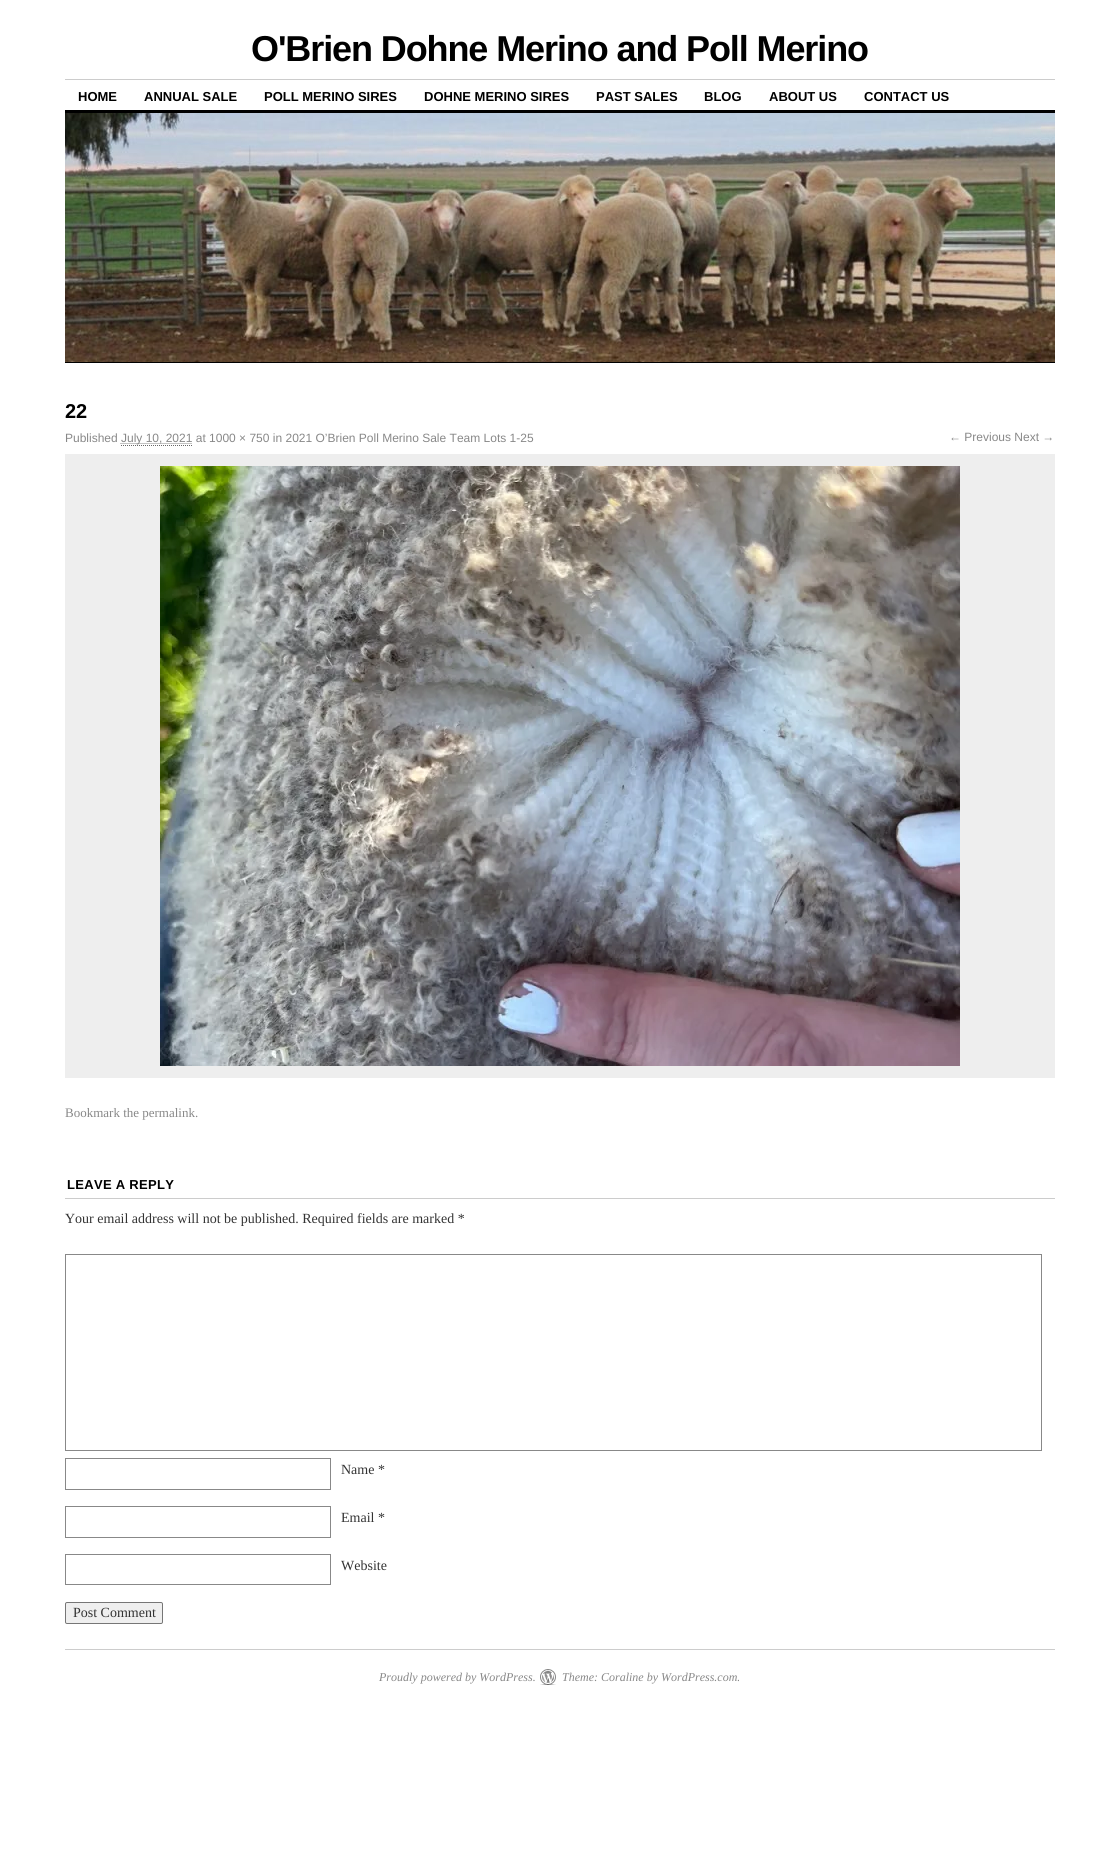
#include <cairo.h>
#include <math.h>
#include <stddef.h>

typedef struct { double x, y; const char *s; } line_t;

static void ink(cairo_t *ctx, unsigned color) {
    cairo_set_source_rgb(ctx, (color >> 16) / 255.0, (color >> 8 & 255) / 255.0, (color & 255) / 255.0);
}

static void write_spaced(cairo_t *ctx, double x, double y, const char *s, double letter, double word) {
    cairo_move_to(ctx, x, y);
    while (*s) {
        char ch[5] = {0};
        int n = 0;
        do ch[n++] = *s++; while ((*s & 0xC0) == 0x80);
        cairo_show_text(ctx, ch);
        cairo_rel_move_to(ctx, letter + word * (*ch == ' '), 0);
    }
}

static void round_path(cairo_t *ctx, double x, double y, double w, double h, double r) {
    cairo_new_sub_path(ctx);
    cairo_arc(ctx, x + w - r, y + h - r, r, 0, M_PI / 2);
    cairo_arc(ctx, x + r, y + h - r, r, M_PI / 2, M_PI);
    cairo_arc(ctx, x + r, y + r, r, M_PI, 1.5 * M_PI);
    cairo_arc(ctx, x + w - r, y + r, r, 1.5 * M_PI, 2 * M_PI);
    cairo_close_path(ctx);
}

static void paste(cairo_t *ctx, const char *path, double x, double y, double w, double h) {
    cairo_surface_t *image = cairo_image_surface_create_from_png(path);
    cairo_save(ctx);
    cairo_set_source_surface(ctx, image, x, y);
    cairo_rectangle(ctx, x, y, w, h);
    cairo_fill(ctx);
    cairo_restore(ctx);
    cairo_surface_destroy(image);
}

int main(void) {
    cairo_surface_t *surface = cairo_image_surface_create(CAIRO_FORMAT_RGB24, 1119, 1869);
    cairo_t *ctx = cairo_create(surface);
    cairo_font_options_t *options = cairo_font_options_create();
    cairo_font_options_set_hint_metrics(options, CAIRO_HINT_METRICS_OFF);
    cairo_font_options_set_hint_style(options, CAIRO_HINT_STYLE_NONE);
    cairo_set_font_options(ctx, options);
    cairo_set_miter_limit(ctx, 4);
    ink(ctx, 0xFFFFFF);
    cairo_paint(ctx);
    cairo_select_font_face(ctx, "Liberation Sans", CAIRO_FONT_SLANT_NORMAL, CAIRO_FONT_WEIGHT_BOLD);
    cairo_set_font_size(ctx, 36);
    ink(ctx, 0x000000);
    write_spaced(ctx, 251, 61, "O'Brien Dohne Merino and Poll Merino", -1.1, 0);
    ink(ctx, 0xCCCCCC);
    cairo_rectangle(ctx, 65, 79, 990, 1);
    cairo_fill(ctx);
    cairo_set_font_size(ctx, 13);
    ink(ctx, 0x000000);
    {
        static const line_t items[] = {
            {78, 101, "HOME"},
            {144, 101, "ANNUAL SALE"},
            {264, 101, "POLL MERINO SIRES"},
            {424, 101, "DOHNE MERINO SIRES"},
            {596, 101, "PAST SALES"},
            {704, 101, "BLOG"},
            {769, 101, "ABOUT US"},
            {864, 101, "CONTACT US"},
        };
        for (size_t i = 0; i < sizeof items / sizeof *items; i++) {
            cairo_move_to(ctx, items[i].x, items[i].y);
            cairo_show_text(ctx, items[i].s);
        }
    }
    cairo_rectangle(ctx, 65, 110, 990, 3);
    cairo_fill(ctx);
    paste(ctx, "media/1.png", 65, 113, 990, 249);
    cairo_rectangle(ctx, 65, 362, 990, 1);
    cairo_fill(ctx);
    cairo_set_font_size(ctx, 20);
    cairo_move_to(ctx, 65, 418);
    cairo_show_text(ctx, "22");
    cairo_select_font_face(ctx, "Liberation Sans", CAIRO_FONT_SLANT_NORMAL, CAIRO_FONT_WEIGHT_NORMAL);
    cairo_set_font_size(ctx, 12);
    ink(ctx, 0x888888);
    cairo_move_to(ctx, 65, 442);
    cairo_show_text(ctx, "Published");
    cairo_new_path(ctx);
    cairo_move_to(ctx, 120.5, 443.5);
    cairo_line_to(ctx, 192, 443.5);
    cairo_set_line_width(ctx, 1);
    cairo_set_dash(ctx, (double[]){1, 1}, 2, 0);
    cairo_stroke(ctx);
    cairo_move_to(ctx, 121, 442);
    cairo_show_text(ctx, "July 10, 2021 at 1000 × 750 in 2021 O’Brien Poll Merino Sale Team Lots 1-25");
    cairo_new_path(ctx);
    cairo_move_to(ctx, 121, 445.5);
    cairo_line_to(ctx, 192, 445.5);
    ink(ctx, 0x666666);
    cairo_stroke(ctx);
    ink(ctx, 0x888888);
    cairo_move_to(ctx, 949, 441);
    cairo_show_text(ctx, "← Previous Next →");
    ink(ctx, 0xEEEEEE);
    cairo_rectangle(ctx, 65, 454, 990, 624);
    cairo_fill(ctx);
    paste(ctx, "media/2.png", 160, 466, 800, 600);
    cairo_select_font_face(ctx, "Liberation Serif", CAIRO_FONT_SLANT_NORMAL, CAIRO_FONT_WEIGHT_NORMAL);
    cairo_set_font_size(ctx, 13);
    ink(ctx, 0x888888);
    cairo_move_to(ctx, 65, 1117);
    cairo_show_text(ctx, "Bookmark the permalink.");
    ink(ctx, 0xCCCCCC);
    cairo_rectangle(ctx, 65, 1198, 990, 1);
    cairo_fill(ctx);
    cairo_select_font_face(ctx, "Liberation Sans", CAIRO_FONT_SLANT_NORMAL, CAIRO_FONT_WEIGHT_BOLD);
    ink(ctx, 0x000000);
    write_spaced(ctx, 67, 1189, "LEAVE A REPLY", 0.3, 0);
    cairo_select_font_face(ctx, "Liberation Serif", CAIRO_FONT_SLANT_NORMAL, CAIRO_FONT_WEIGHT_NORMAL);
    cairo_set_font_size(ctx, 14);
    ink(ctx, 0x333333);
    cairo_move_to(ctx, 65, 1223);
    cairo_show_text(ctx, "Your email address will not be published. Required fields are marked *");
    cairo_rectangle(ctx, 65.5, 1254.5, 976, 196);
    ink(ctx, 0x888888);
    cairo_set_dash(ctx, NULL, 0, 0);
    cairo_stroke(ctx);
    cairo_rectangle(ctx, 65.5, 1458.5, 265, 31);
    cairo_stroke(ctx);
    ink(ctx, 0x333333);
    cairo_move_to(ctx, 341, 1474);
    cairo_show_text(ctx, "Name *");
    cairo_rectangle(ctx, 65.5, 1506.5, 265, 31);
    ink(ctx, 0x888888);
    cairo_stroke(ctx);
    ink(ctx, 0x333333);
    cairo_move_to(ctx, 341, 1522);
    cairo_show_text(ctx, "Email *");
    cairo_rectangle(ctx, 65.5, 1554.5, 265, 30);
    ink(ctx, 0x888888);
    cairo_stroke(ctx);
    ink(ctx, 0x333333);
    cairo_move_to(ctx, 341, 1570);
    cairo_show_text(ctx, "Website");
    ink(ctx, 0xEFEFEF);
    round_path(ctx, 65.5, 1602.5, 97, 21, 1.5);
    cairo_fill_preserve(ctx);
    ink(ctx, 0x767676);
    cairo_stroke(ctx);
    ink(ctx, 0x333333);
    cairo_move_to(ctx, 73, 1617);
    cairo_show_text(ctx, "Post Comment");
    ink(ctx, 0xCCCCCC);
    cairo_rectangle(ctx, 65, 1649, 990, 1);
    cairo_fill(ctx);
    paste(ctx, "media/3.png", 540, 1669, 16, 16);
    cairo_select_font_face(ctx, "Liberation Serif", CAIRO_FONT_SLANT_ITALIC, CAIRO_FONT_WEIGHT_NORMAL);
    cairo_set_font_size(ctx, 12);
    ink(ctx, 0x888888);
    cairo_move_to(ctx, 379, 1681);
    cairo_show_text(ctx, "Proudly powered by WordPress.");
    cairo_move_to(ctx, 562, 1681);
    cairo_show_text(ctx, "Theme: Coraline by WordPress.com.");
    cairo_surface_write_to_png(surface, "image.png");
    cairo_font_options_destroy(options);
    cairo_destroy(ctx);
    cairo_surface_destroy(surface);
    return 0;
}
